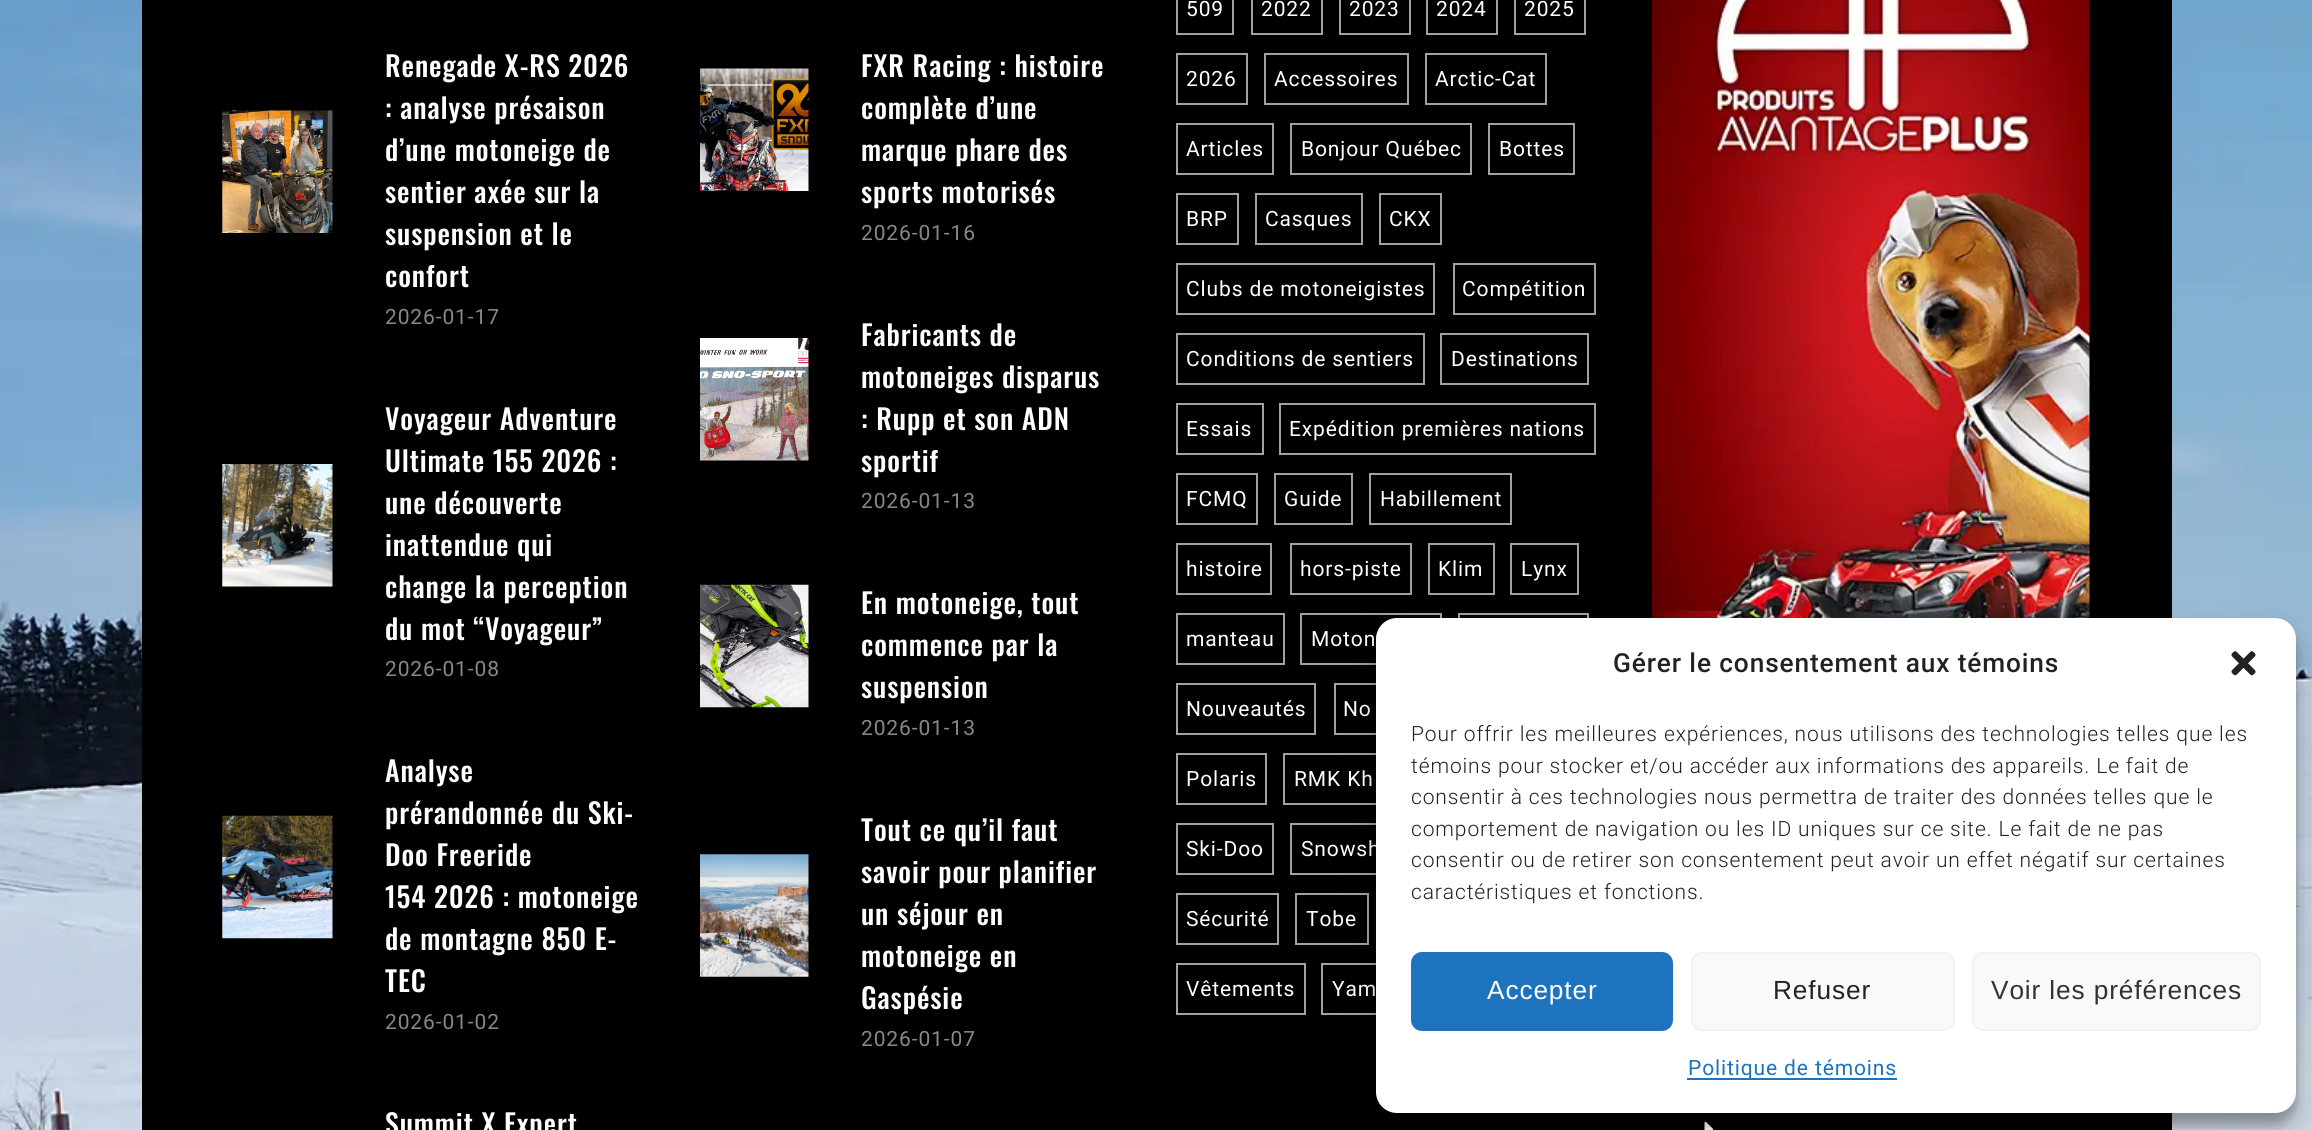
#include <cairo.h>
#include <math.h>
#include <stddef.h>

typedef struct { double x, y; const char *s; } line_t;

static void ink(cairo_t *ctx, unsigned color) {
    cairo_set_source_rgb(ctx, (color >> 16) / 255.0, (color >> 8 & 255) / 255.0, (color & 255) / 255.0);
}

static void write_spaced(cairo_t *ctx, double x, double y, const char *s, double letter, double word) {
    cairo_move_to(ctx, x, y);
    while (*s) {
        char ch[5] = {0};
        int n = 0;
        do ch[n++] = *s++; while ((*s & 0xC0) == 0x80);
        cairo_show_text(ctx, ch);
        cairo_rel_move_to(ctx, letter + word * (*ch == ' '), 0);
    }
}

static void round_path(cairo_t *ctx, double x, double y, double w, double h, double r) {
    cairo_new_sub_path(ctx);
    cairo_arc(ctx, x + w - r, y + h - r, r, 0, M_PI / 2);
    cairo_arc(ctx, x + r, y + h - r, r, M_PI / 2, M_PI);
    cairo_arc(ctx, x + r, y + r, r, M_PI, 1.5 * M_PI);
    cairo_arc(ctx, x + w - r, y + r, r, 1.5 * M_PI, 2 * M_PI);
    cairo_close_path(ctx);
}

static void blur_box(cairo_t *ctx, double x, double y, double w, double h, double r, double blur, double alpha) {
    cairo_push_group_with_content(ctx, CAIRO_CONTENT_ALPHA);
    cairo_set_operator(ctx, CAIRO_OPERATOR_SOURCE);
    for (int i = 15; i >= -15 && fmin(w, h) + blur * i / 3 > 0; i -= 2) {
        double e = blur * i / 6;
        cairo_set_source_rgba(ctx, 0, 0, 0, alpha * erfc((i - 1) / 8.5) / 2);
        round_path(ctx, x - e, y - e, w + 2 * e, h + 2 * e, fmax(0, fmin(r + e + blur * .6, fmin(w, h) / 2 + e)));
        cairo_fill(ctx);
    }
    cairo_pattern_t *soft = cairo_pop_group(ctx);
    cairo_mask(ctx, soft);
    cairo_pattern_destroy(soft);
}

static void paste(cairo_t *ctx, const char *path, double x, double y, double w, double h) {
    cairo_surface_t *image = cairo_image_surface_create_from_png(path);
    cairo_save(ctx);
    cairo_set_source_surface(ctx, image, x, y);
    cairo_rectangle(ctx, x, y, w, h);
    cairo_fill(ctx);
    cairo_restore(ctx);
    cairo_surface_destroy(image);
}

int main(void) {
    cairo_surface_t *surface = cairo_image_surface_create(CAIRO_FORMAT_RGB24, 2312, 1130);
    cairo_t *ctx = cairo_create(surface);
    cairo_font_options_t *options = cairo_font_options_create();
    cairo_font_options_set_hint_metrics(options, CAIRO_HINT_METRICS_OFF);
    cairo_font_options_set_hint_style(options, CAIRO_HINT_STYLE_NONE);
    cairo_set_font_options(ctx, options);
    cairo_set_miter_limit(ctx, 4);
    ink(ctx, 0xFFFFFF);
    cairo_paint(ctx);
    paste(ctx, "media/1.png", 0, 0, 2312, 1130);
    ink(ctx, 0x000000);
    cairo_rectangle(ctx, 142, 0, 2030, 1130);
    cairo_fill(ctx);
    paste(ctx, "media/2.png", 222, 110, 111, 123);
    cairo_select_font_face(ctx, "Oswald Medium", CAIRO_FONT_SLANT_NORMAL, CAIRO_FONT_WEIGHT_NORMAL);
    cairo_set_font_size(ctx, 28);
    ink(ctx, 0xFFFFFF);
    {
        static const line_t items[] = {
            {385, 77, "Renegade X-RS 2026"},
            {385, 119, ": analyse présaison"},
            {385, 161, "d’une motoneige de"},
            {385, 203, "sentier axée sur la"},
            {385, 245, "suspension et le"},
            {385, 287, "confort"},
        };
        for (size_t i = 0; i < sizeof items / sizeof *items; i++) {
            write_spaced(ctx, items[i].x, items[i].y, items[i].s, 0.88, 0);
        }
    }
    cairo_select_font_face(ctx, "Roboto", CAIRO_FONT_SLANT_NORMAL, CAIRO_FONT_WEIGHT_NORMAL);
    cairo_set_font_size(ctx, 21);
    ink(ctx, 0x888888);
    write_spaced(ctx, 385, 324, "2026-01-17", 0.88, 0);
    paste(ctx, "media/3.png", 222, 464, 111, 123);
    cairo_select_font_face(ctx, "Oswald Medium", CAIRO_FONT_SLANT_NORMAL, CAIRO_FONT_WEIGHT_NORMAL);
    cairo_set_font_size(ctx, 28);
    ink(ctx, 0xFFFFFF);
    {
        static const line_t items[] = {
            {385, 430, "Voyageur Adventure"},
            {385, 472, "Ultimate 155 2026 :"},
            {385, 514, "une découverte"},
            {385, 556, "inattendue qui"},
            {385, 598, "change la perception"},
            {385, 640, "du mot “Voyageur”"},
        };
        for (size_t i = 0; i < sizeof items / sizeof *items; i++) {
            write_spaced(ctx, items[i].x, items[i].y, items[i].s, 0.88, 0);
        }
    }
    cairo_select_font_face(ctx, "Roboto", CAIRO_FONT_SLANT_NORMAL, CAIRO_FONT_WEIGHT_NORMAL);
    cairo_set_font_size(ctx, 21);
    ink(ctx, 0x888888);
    write_spaced(ctx, 385, 676, "2026-01-08", 0.88, 0);
    paste(ctx, "media/4.png", 222, 815, 111, 124);
    cairo_select_font_face(ctx, "Oswald Medium", CAIRO_FONT_SLANT_NORMAL, CAIRO_FONT_WEIGHT_NORMAL);
    cairo_set_font_size(ctx, 28);
    ink(ctx, 0xFFFFFF);
    {
        static const line_t items[] = {
            {385, 782, "Analyse"},
            {385, 824, "prérandonnée du Ski-"},
            {385, 866, "Doo Freeride"},
            {385, 908, "154 2026 : motoneige"},
            {385, 950, "de montagne 850 E-"},
            {385, 992, "TEC"},
        };
        for (size_t i = 0; i < sizeof items / sizeof *items; i++) {
            write_spaced(ctx, items[i].x, items[i].y, items[i].s, 0.88, 0);
        }
    }
    cairo_select_font_face(ctx, "Roboto", CAIRO_FONT_SLANT_NORMAL, CAIRO_FONT_WEIGHT_NORMAL);
    cairo_set_font_size(ctx, 21);
    ink(ctx, 0x888888);
    write_spaced(ctx, 385, 1029, "2026-01-02", 0.88, 0);
    cairo_select_font_face(ctx, "Oswald Medium", CAIRO_FONT_SLANT_NORMAL, CAIRO_FONT_WEIGHT_NORMAL);
    cairo_set_font_size(ctx, 28);
    ink(ctx, 0xFFFFFF);
    write_spaced(ctx, 385, 1135, "Summit X Expert", 0.88, 0);
    paste(ctx, "media/5.png", 700, 68, 109, 123);
    {
        static const line_t items[] = {
            {861, 77, "FXR Racing : histoire"},
            {861, 119, "complète d’une"},
            {861, 161, "marque phare des"},
            {861, 203, "sports motorisés"},
        };
        for (size_t i = 0; i < sizeof items / sizeof *items; i++) {
            write_spaced(ctx, items[i].x, items[i].y, items[i].s, 0.88, 0);
        }
    }
    cairo_select_font_face(ctx, "Roboto", CAIRO_FONT_SLANT_NORMAL, CAIRO_FONT_WEIGHT_NORMAL);
    cairo_set_font_size(ctx, 21);
    ink(ctx, 0x888888);
    write_spaced(ctx, 861, 240, "2026-01-16", 0.88, 0);
    paste(ctx, "media/6.png", 700, 338, 109, 123);
    cairo_select_font_face(ctx, "Oswald Medium", CAIRO_FONT_SLANT_NORMAL, CAIRO_FONT_WEIGHT_NORMAL);
    cairo_set_font_size(ctx, 28);
    ink(ctx, 0xFFFFFF);
    {
        static const line_t items[] = {
            {861, 346, "Fabricants de"},
            {861, 388, "motoneiges disparus"},
            {861, 430, ": Rupp et son ADN"},
            {861, 472, "sportif"},
        };
        for (size_t i = 0; i < sizeof items / sizeof *items; i++) {
            write_spaced(ctx, items[i].x, items[i].y, items[i].s, 0.88, 0);
        }
    }
    cairo_select_font_face(ctx, "Roboto", CAIRO_FONT_SLANT_NORMAL, CAIRO_FONT_WEIGHT_NORMAL);
    cairo_set_font_size(ctx, 21);
    ink(ctx, 0x888888);
    write_spaced(ctx, 861, 508, "2026-01-13", 0.88, 0);
    paste(ctx, "media/7.png", 700, 584, 109, 124);
    cairo_select_font_face(ctx, "Oswald Medium", CAIRO_FONT_SLANT_NORMAL, CAIRO_FONT_WEIGHT_NORMAL);
    cairo_set_font_size(ctx, 28);
    ink(ctx, 0xFFFFFF);
    {
        static const line_t items[] = {
            {861, 614, "En motoneige, tout"},
            {861, 656, "commence par la"},
            {861, 698, "suspension"},
        };
        for (size_t i = 0; i < sizeof items / sizeof *items; i++) {
            write_spaced(ctx, items[i].x, items[i].y, items[i].s, 0.88, 0);
        }
    }
    cairo_select_font_face(ctx, "Roboto", CAIRO_FONT_SLANT_NORMAL, CAIRO_FONT_WEIGHT_NORMAL);
    cairo_set_font_size(ctx, 21);
    ink(ctx, 0x888888);
    write_spaced(ctx, 861, 735, "2026-01-13", 0.88, 0);
    paste(ctx, "media/8.png", 700, 854, 109, 123);
    cairo_select_font_face(ctx, "Oswald Medium", CAIRO_FONT_SLANT_NORMAL, CAIRO_FONT_WEIGHT_NORMAL);
    cairo_set_font_size(ctx, 28);
    ink(ctx, 0xFFFFFF);
    {
        static const line_t items[] = {
            {861, 841, "Tout ce qu’il faut"},
            {861, 883, "savoir pour planifier"},
            {861, 925, "un séjour en"},
            {861, 967, "motoneige en"},
            {861, 1009, "Gaspésie"},
        };
        for (size_t i = 0; i < sizeof items / sizeof *items; i++) {
            write_spaced(ctx, items[i].x, items[i].y, items[i].s, 0.88, 0);
        }
    }
    cairo_select_font_face(ctx, "Roboto", CAIRO_FONT_SLANT_NORMAL, CAIRO_FONT_WEIGHT_NORMAL);
    cairo_set_font_size(ctx, 21);
    ink(ctx, 0x888888);
    write_spaced(ctx, 861, 1046, "2026-01-07", 0.88, 0);
    cairo_rectangle(ctx, 1177, -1, 56, 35);
    ink(ctx, 0xA1A1A1);
    cairo_stroke(ctx);
    ink(ctx, 0xFFFFFF);
    write_spaced(ctx, 1186, 16, "509", 0.88, 0);
    cairo_rectangle(ctx, 1252, -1, 70, 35);
    ink(ctx, 0xA1A1A1);
    cairo_stroke(ctx);
    ink(ctx, 0xFFFFFF);
    write_spaced(ctx, 1261, 16, "2022", 0.88, 0);
    cairo_rectangle(ctx, 1340, -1, 70, 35);
    ink(ctx, 0xA1A1A1);
    cairo_stroke(ctx);
    ink(ctx, 0xFFFFFF);
    write_spaced(ctx, 1349, 16, "2023", 0.88, 0);
    cairo_rectangle(ctx, 1427, -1, 70, 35);
    ink(ctx, 0xA1A1A1);
    cairo_stroke(ctx);
    ink(ctx, 0xFFFFFF);
    write_spaced(ctx, 1436, 16, "2024", 0.88, 0);
    cairo_rectangle(ctx, 1515, -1, 70, 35);
    ink(ctx, 0xA1A1A1);
    cairo_stroke(ctx);
    ink(ctx, 0xFFFFFF);
    write_spaced(ctx, 1524, 16, "2025", 0.88, 0);
    cairo_rectangle(ctx, 1177, 54, 70, 50);
    ink(ctx, 0xA1A1A1);
    cairo_stroke(ctx);
    ink(ctx, 0xFFFFFF);
    write_spaced(ctx, 1186, 86, "2026", 0.88, 0);
    cairo_rectangle(ctx, 1265, 54, 143, 50);
    ink(ctx, 0xA1A1A1);
    cairo_stroke(ctx);
    ink(ctx, 0xFFFFFF);
    write_spaced(ctx, 1274, 86, "Accessoires", 0.88, 0);
    cairo_rectangle(ctx, 1426, 54, 120, 50);
    ink(ctx, 0xA1A1A1);
    cairo_stroke(ctx);
    ink(ctx, 0xFFFFFF);
    write_spaced(ctx, 1435, 86, "Arctic-Cat", 0.88, 0);
    cairo_rectangle(ctx, 1177, 124, 96, 50);
    ink(ctx, 0xA1A1A1);
    cairo_stroke(ctx);
    ink(ctx, 0xFFFFFF);
    write_spaced(ctx, 1186, 156, "Articles", 0.88, 0);
    cairo_rectangle(ctx, 1291, 124, 180, 50);
    ink(ctx, 0xA1A1A1);
    cairo_stroke(ctx);
    ink(ctx, 0xFFFFFF);
    write_spaced(ctx, 1301, 156, "Bonjour Québec", 0.88, 0);
    cairo_rectangle(ctx, 1489, 124, 85, 50);
    ink(ctx, 0xA1A1A1);
    cairo_stroke(ctx);
    ink(ctx, 0xFFFFFF);
    write_spaced(ctx, 1499, 156, "Bottes", 0.88, 0);
    cairo_rectangle(ctx, 1177, 194, 61, 50);
    ink(ctx, 0xA1A1A1);
    cairo_stroke(ctx);
    ink(ctx, 0xFFFFFF);
    write_spaced(ctx, 1186, 226, "BRP", 0.88, 0);
    cairo_rectangle(ctx, 1256, 194, 106, 50);
    ink(ctx, 0xA1A1A1);
    cairo_stroke(ctx);
    ink(ctx, 0xFFFFFF);
    write_spaced(ctx, 1265, 226, "Casques", 0.88, 0);
    cairo_rectangle(ctx, 1380, 194, 61, 50);
    ink(ctx, 0xA1A1A1);
    cairo_stroke(ctx);
    ink(ctx, 0xFFFFFF);
    write_spaced(ctx, 1389, 226, "CKX", 0.88, 0);
    cairo_rectangle(ctx, 1177, 264, 257, 50);
    ink(ctx, 0xA1A1A1);
    cairo_stroke(ctx);
    ink(ctx, 0xFFFFFF);
    write_spaced(ctx, 1186, 296, "Clubs de motoneigistes", 0.88, 0);
    cairo_rectangle(ctx, 1454, 264, 141, 50);
    ink(ctx, 0xA1A1A1);
    cairo_stroke(ctx);
    ink(ctx, 0xFFFFFF);
    write_spaced(ctx, 1462, 296, "Compétition", 0.88, 0);
    cairo_rectangle(ctx, 1177, 334, 247, 50);
    ink(ctx, 0xA1A1A1);
    cairo_stroke(ctx);
    ink(ctx, 0xFFFFFF);
    write_spaced(ctx, 1186, 366, "Conditions de sentiers", 0.88, 0);
    cairo_rectangle(ctx, 1441, 334, 147, 50);
    ink(ctx, 0xA1A1A1);
    cairo_stroke(ctx);
    ink(ctx, 0xFFFFFF);
    write_spaced(ctx, 1451, 366, "Destinations", 0.88, 0);
    cairo_rectangle(ctx, 1177, 404, 86, 50);
    ink(ctx, 0xA1A1A1);
    cairo_stroke(ctx);
    ink(ctx, 0xFFFFFF);
    write_spaced(ctx, 1186, 436, "Essais", 0.88, 0);
    cairo_rectangle(ctx, 1280, 404, 315, 50);
    ink(ctx, 0xA1A1A1);
    cairo_stroke(ctx);
    ink(ctx, 0xFFFFFF);
    write_spaced(ctx, 1289, 436, "Expédition premières nations", 0.88, 0);
    cairo_rectangle(ctx, 1177, 474, 80, 50);
    ink(ctx, 0xA1A1A1);
    cairo_stroke(ctx);
    ink(ctx, 0xFFFFFF);
    write_spaced(ctx, 1186, 506, "FCMQ", 0.88, 0);
    cairo_rectangle(ctx, 1275, 474, 77, 50);
    ink(ctx, 0xA1A1A1);
    cairo_stroke(ctx);
    ink(ctx, 0xFFFFFF);
    write_spaced(ctx, 1284, 506, "Guide", 0.88, 0);
    cairo_rectangle(ctx, 1370, 474, 141, 50);
    ink(ctx, 0xA1A1A1);
    cairo_stroke(ctx);
    ink(ctx, 0xFFFFFF);
    write_spaced(ctx, 1380, 506, "Habillement", 0.88, 0);
    cairo_rectangle(ctx, 1177, 544, 94, 50);
    ink(ctx, 0xA1A1A1);
    cairo_stroke(ctx);
    ink(ctx, 0xFFFFFF);
    write_spaced(ctx, 1186, 576, "histoire", 0.88, 0);
    cairo_rectangle(ctx, 1291, 544, 120, 50);
    ink(ctx, 0xA1A1A1);
    cairo_stroke(ctx);
    ink(ctx, 0xFFFFFF);
    write_spaced(ctx, 1300, 576, "hors-piste", 0.88, 0);
    cairo_rectangle(ctx, 1429, 544, 65, 50);
    ink(ctx, 0xA1A1A1);
    cairo_stroke(ctx);
    ink(ctx, 0xFFFFFF);
    write_spaced(ctx, 1438, 576, "Klim", 0.88, 0);
    cairo_rectangle(ctx, 1511, 544, 67, 50);
    ink(ctx, 0xA1A1A1);
    cairo_stroke(ctx);
    ink(ctx, 0xFFFFFF);
    write_spaced(ctx, 1521, 576, "Lynx", 0.88, 0);
    cairo_rectangle(ctx, 1177, 614, 107, 50);
    ink(ctx, 0xA1A1A1);
    cairo_stroke(ctx);
    ink(ctx, 0xFFFFFF);
    write_spaced(ctx, 1186, 646, "manteau", 0.88, 0);
    cairo_rectangle(ctx, 1301, 614, 140, 50);
    ink(ctx, 0xA1A1A1);
    cairo_stroke(ctx);
    ink(ctx, 0xFFFFFF);
    write_spaced(ctx, 1311, 646, "Moton", 0.88, 0);
    cairo_rectangle(ctx, 1459, 614, 129, 50);
    ink(ctx, 0xA1A1A1);
    cairo_stroke(ctx);
    cairo_rectangle(ctx, 1177, 684, 138, 50);
    cairo_stroke(ctx);
    ink(ctx, 0xFFFFFF);
    write_spaced(ctx, 1186, 716, "Nouveautés", 0.88, 0);
    cairo_rectangle(ctx, 1335, 684, 118, 50);
    ink(ctx, 0xA1A1A1);
    cairo_stroke(ctx);
    ink(ctx, 0xFFFFFF);
    write_spaced(ctx, 1343, 716, "No", 0.88, 0);
    cairo_rectangle(ctx, 1177, 754, 89, 50);
    ink(ctx, 0xA1A1A1);
    cairo_stroke(ctx);
    ink(ctx, 0xFFFFFF);
    write_spaced(ctx, 1186, 786, "Polaris", 0.88, 0);
    cairo_rectangle(ctx, 1284, 754, 136, 50);
    ink(ctx, 0xA1A1A1);
    cairo_stroke(ctx);
    ink(ctx, 0xFFFFFF);
    write_spaced(ctx, 1294, 786, "RMK Kh", 0.88, 0);
    cairo_rectangle(ctx, 1177, 824, 96, 50);
    ink(ctx, 0xA1A1A1);
    cairo_stroke(ctx);
    ink(ctx, 0xFFFFFF);
    write_spaced(ctx, 1186, 856, "Ski-Doo", 0.88, 0);
    cairo_rectangle(ctx, 1291, 824, 133, 50);
    ink(ctx, 0xA1A1A1);
    cairo_stroke(ctx);
    ink(ctx, 0xFFFFFF);
    write_spaced(ctx, 1301, 856, "Snowsh", 0.88, 0);
    cairo_rectangle(ctx, 1177, 894, 101, 50);
    ink(ctx, 0xA1A1A1);
    cairo_stroke(ctx);
    ink(ctx, 0xFFFFFF);
    write_spaced(ctx, 1186, 926, "Sécurité", 0.88, 0);
    cairo_rectangle(ctx, 1296, 894, 72, 50);
    ink(ctx, 0xA1A1A1);
    cairo_stroke(ctx);
    ink(ctx, 0xFFFFFF);
    write_spaced(ctx, 1306, 926, "Tobe", 0.88, 0);
    cairo_rectangle(ctx, 1177, 964, 128, 50);
    ink(ctx, 0xA1A1A1);
    cairo_stroke(ctx);
    ink(ctx, 0xFFFFFF);
    write_spaced(ctx, 1186, 996, "Vêtements", 0.88, 0);
    cairo_rectangle(ctx, 1322, 964, 102, 50);
    ink(ctx, 0xA1A1A1);
    cairo_stroke(ctx);
    ink(ctx, 0xFFFFFF);
    write_spaced(ctx, 1332, 996, "Yam", 0.88, 0);
    paste(ctx, "media/9.png", 1652, 0, 438, 618);
    paste(ctx, "media/10.png", 1704, 1121, 10, 9);
    ink(ctx, 0x000000);
    blur_box(ctx, 1376, 628, 920, 496, 21, 5, 0.23);
    blur_box(ctx, 1376, 635, 920, 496, 21, 17.5, 0.19);
    ink(ctx, 0xFFFFFF);
    round_path(ctx, 1376, 618, 920, 495, 21);
    cairo_fill(ctx);
    cairo_select_font_face(ctx, "Roboto Medium", CAIRO_FONT_SLANT_NORMAL, CAIRO_FONT_WEIGHT_NORMAL);
    cairo_set_font_size(ctx, 26.25);
    ink(ctx, 0x222222);
    write_spaced(ctx, 1613, 672, "Gérer le consentement aux témoins", 0.88, 0);
    paste(ctx, "media/11.png", 2231, 651, 25, 25);
    cairo_select_font_face(ctx, "Roboto Light", CAIRO_FONT_SLANT_NORMAL, CAIRO_FONT_WEIGHT_NORMAL);
    cairo_set_font_size(ctx, 21);
    {
        static const line_t items[] = {
            {1411, 741, "Pour offrir les meilleures expériences, nous utilisons des technologies telles que les"},
            {1411, 773, "témoins pour stocker et/ou accéder aux informations des appareils. Le fait de"},
            {1411, 804, "consentir à ces technologies nous permettra de traiter des données telles que le"},
            {1411, 836, "comportement de navigation ou les ID uniques sur ce site. Le fait de ne pas"},
            {1411, 867, "consentir ou de retirer son consentement peut avoir un effet négatif sur certaines"},
            {1411, 899, "caractéristiques et fonctions."},
        };
        for (size_t i = 0; i < sizeof items / sizeof *items; i++) {
            write_spaced(ctx, items[i].x, items[i].y, items[i].s, 0.88, 0);
        }
    }
    ink(ctx, 0x1E73BE);
    round_path(ctx, 1412, 953, 260, 77, 10);
    cairo_fill_preserve(ctx);
    cairo_stroke(ctx);
    cairo_select_font_face(ctx, "Liberation Sans", CAIRO_FONT_SLANT_NORMAL, CAIRO_FONT_WEIGHT_NORMAL);
    cairo_set_font_size(ctx, 26.25);
    ink(ctx, 0xFFFFFF);
    write_spaced(ctx, 1487, 999, "Accepter", 0.88, 0);
    ink(ctx, 0xF9F9F9);
    round_path(ctx, 1692, 953, 262, 77, 10);
    cairo_fill_preserve(ctx);
    ink(ctx, 0xF2F2F2);
    cairo_stroke(ctx);
    ink(ctx, 0x222222);
    write_spaced(ctx, 1773, 999, "Refuser", 0.88, 0);
    ink(ctx, 0xF9F9F9);
    round_path(ctx, 1973, 953, 287, 77, 10);
    cairo_fill_preserve(ctx);
    ink(ctx, 0xF2F2F2);
    cairo_stroke(ctx);
    ink(ctx, 0x333333);
    write_spaced(ctx, 1991, 999, "Voir les préférences", 0.88, 0);
    ink(ctx, 0x1E73BE);
    cairo_rectangle(ctx, 1687, 1078, 210, 2);
    cairo_fill(ctx);
    cairo_select_font_face(ctx, "Roboto", CAIRO_FONT_SLANT_NORMAL, CAIRO_FONT_WEIGHT_NORMAL);
    cairo_set_font_size(ctx, 21);
    write_spaced(ctx, 1688, 1075, "Politique de témoins", 0.88, 0);
    cairo_surface_write_to_png(surface, "image.png");
    cairo_font_options_destroy(options);
    cairo_destroy(ctx);
    cairo_surface_destroy(surface);
    return 0;
}
